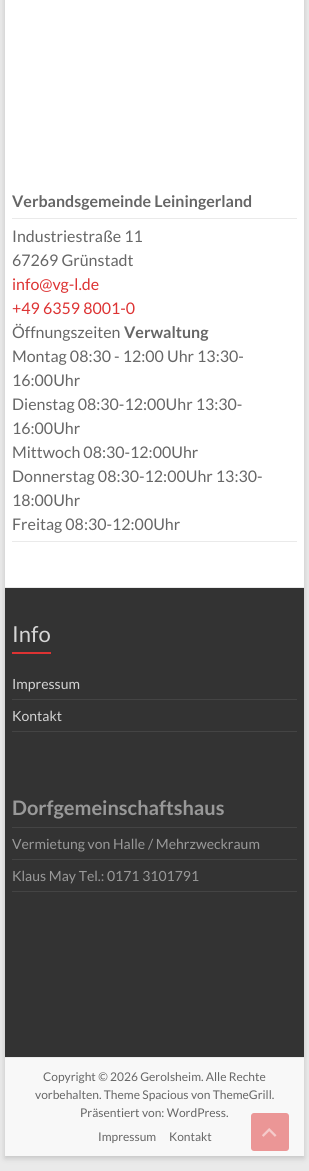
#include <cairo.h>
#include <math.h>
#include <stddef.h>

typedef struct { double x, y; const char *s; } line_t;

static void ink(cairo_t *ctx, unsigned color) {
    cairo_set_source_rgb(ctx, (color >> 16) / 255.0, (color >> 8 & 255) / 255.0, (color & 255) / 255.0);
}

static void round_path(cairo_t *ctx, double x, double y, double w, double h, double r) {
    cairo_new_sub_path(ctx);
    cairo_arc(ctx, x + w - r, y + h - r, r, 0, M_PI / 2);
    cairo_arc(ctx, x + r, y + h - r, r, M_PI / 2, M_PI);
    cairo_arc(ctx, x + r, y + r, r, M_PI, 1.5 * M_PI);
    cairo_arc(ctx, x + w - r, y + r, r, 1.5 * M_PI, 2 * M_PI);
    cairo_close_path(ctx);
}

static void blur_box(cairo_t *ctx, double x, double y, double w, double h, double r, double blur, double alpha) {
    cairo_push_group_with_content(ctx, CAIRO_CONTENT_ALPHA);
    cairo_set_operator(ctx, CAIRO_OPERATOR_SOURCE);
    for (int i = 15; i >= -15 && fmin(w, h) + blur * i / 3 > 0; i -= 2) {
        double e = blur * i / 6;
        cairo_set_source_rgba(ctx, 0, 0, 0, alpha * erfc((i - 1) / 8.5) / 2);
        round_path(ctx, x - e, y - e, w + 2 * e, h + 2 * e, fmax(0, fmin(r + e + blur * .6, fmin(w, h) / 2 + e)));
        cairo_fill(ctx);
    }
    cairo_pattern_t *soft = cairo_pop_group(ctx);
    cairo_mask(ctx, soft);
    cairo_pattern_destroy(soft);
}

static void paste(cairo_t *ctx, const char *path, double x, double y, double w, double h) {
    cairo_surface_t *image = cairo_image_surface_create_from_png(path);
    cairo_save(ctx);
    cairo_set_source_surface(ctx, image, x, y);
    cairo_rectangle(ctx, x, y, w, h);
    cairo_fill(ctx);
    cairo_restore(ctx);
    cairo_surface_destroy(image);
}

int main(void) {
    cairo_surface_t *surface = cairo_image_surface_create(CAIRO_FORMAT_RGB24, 309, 1171);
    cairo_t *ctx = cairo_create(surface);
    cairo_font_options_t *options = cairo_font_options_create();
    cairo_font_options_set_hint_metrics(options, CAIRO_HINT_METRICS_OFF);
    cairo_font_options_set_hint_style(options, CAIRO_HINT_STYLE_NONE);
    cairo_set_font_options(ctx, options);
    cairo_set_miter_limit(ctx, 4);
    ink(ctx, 0xEAEAEA);
    cairo_paint(ctx);
    ink(ctx, 0x646464);
    blur_box(ctx, 5, -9, 299, 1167, 0, 3, 0.3);
    ink(ctx, 0xFFFFFF);
    cairo_rectangle(ctx, 5, 0, 299, 587);
    cairo_fill(ctx);
    ink(ctx, 0xEAEAEA);
    cairo_rectangle(ctx, 12, 218, 285, 1);
    cairo_fill(ctx);
    cairo_select_font_face(ctx, "Lato", CAIRO_FONT_SLANT_NORMAL, CAIRO_FONT_WEIGHT_BOLD);
    cairo_set_font_size(ctx, 16);
    ink(ctx, 0x666666);
    cairo_move_to(ctx, 12, 207);
    cairo_show_text(ctx, "Verbandsgemeinde Leiningerland");
    ink(ctx, 0xEAEAEA);
    cairo_rectangle(ctx, 12, 541, 285, 1);
    cairo_fill(ctx);
    cairo_select_font_face(ctx, "Lato", CAIRO_FONT_SLANT_NORMAL, CAIRO_FONT_WEIGHT_NORMAL);
    ink(ctx, 0x666666);
    cairo_move_to(ctx, 12, 242);
    cairo_show_text(ctx, "Industriestraße 11");
    cairo_move_to(ctx, 12, 266);
    cairo_show_text(ctx, "67269 Grünstadt");
    ink(ctx, 0xDD3333);
    cairo_move_to(ctx, 12, 290);
    cairo_show_text(ctx, "info@vg-l.de");
    cairo_move_to(ctx, 12, 314);
    cairo_show_text(ctx, "+49 6359 8001-0");
    ink(ctx, 0x666666);
    cairo_move_to(ctx, 12, 338);
    cairo_show_text(ctx, "Öffnungszeiten");
    cairo_select_font_face(ctx, "Lato", CAIRO_FONT_SLANT_NORMAL, CAIRO_FONT_WEIGHT_BOLD);
    cairo_move_to(ctx, 124, 338);
    cairo_show_text(ctx, "Verwaltung");
    cairo_select_font_face(ctx, "Lato", CAIRO_FONT_SLANT_NORMAL, CAIRO_FONT_WEIGHT_NORMAL);
    {
        static const line_t items[] = {
            {12, 362, "Montag 08:30 - 12:00 Uhr 13:30-"},
            {12, 386, "16:00Uhr"},
            {12, 410, "Dienstag 08:30-12:00Uhr 13:30-"},
            {12, 434, "16:00Uhr"},
            {12, 458, "Mittwoch 08:30-12:00Uhr"},
            {12, 482, "Donnerstag 08:30-12:00Uhr 13:30-"},
            {12, 506, "18:00Uhr"},
            {12, 530, "Freitag 08:30-12:00Uhr"},
        };
        for (size_t i = 0; i < sizeof items / sizeof *items; i++) {
            cairo_move_to(ctx, items[i].x, items[i].y);
            cairo_show_text(ctx, items[i].s);
        }
    }
    ink(ctx, 0x333333);
    cairo_rectangle(ctx, 5, 588, 299, 469);
    cairo_fill(ctx);
    ink(ctx, 0xEAEAEA);
    cairo_rectangle(ctx, 5, 587, 299, 1);
    cairo_fill(ctx);
    cairo_set_font_size(ctx, 22);
    ink(ctx, 0xD5D5D5);
    cairo_move_to(ctx, 12, 642);
    cairo_show_text(ctx, "Info");
    ink(ctx, 0xDD3333);
    cairo_rectangle(ctx, 12, 652, 39, 2);
    cairo_fill(ctx);
    ink(ctx, 0x444444);
    cairo_rectangle(ctx, 12, 699, 285, 1);
    cairo_fill(ctx);
    cairo_set_font_size(ctx, 14);
    ink(ctx, 0xD5D5D5);
    cairo_move_to(ctx, 12, 689);
    cairo_show_text(ctx, "Impressum");
    ink(ctx, 0x444444);
    cairo_rectangle(ctx, 12, 731, 285, 1);
    cairo_fill(ctx);
    ink(ctx, 0xD5D5D5);
    cairo_move_to(ctx, 12, 721);
    cairo_show_text(ctx, "Kontakt");
    ink(ctx, 0x444444);
    cairo_rectangle(ctx, 12, 827, 285, 1);
    cairo_fill(ctx);
    cairo_select_font_face(ctx, "Lato", CAIRO_FONT_SLANT_NORMAL, CAIRO_FONT_WEIGHT_BOLD);
    cairo_set_font_size(ctx, 20);
    ink(ctx, 0x999999);
    cairo_move_to(ctx, 12, 815);
    cairo_show_text(ctx, "Dorfgemeinschaftshaus");
    ink(ctx, 0x444444);
    cairo_rectangle(ctx, 12, 859, 285, 1);
    cairo_fill(ctx);
    cairo_select_font_face(ctx, "Lato", CAIRO_FONT_SLANT_NORMAL, CAIRO_FONT_WEIGHT_NORMAL);
    cairo_set_font_size(ctx, 14);
    ink(ctx, 0x999999);
    cairo_move_to(ctx, 12, 849);
    cairo_show_text(ctx, "Vermietung von Halle / Mehrzweckraum");
    ink(ctx, 0x444444);
    cairo_rectangle(ctx, 12, 891, 285, 1);
    cairo_fill(ctx);
    ink(ctx, 0x999999);
    cairo_move_to(ctx, 12, 881);
    cairo_show_text(ctx, "Klaus May Tel.: 0171 3101791");
    ink(ctx, 0xF8F8F8);
    cairo_rectangle(ctx, 5, 1058, 299, 98);
    cairo_fill(ctx);
    ink(ctx, 0xEAEAEA);
    cairo_rectangle(ctx, 5, 1057, 299, 1);
    cairo_fill(ctx);
    cairo_set_font_size(ctx, 12);
    ink(ctx, 0x666666);
    {
        static const line_t items[] = {
            {43, 1081, "Copyright © 2026 Gerolsheim. Alle Rechte"},
            {35, 1099, "vorbehalten. Theme Spacious von ThemeGrill."},
            {80, 1117, "Präsentiert von: WordPress."},
            {98, 1141, "Impressum"},
            {169, 1141, "Kontakt"},
        };
        for (size_t i = 0; i < sizeof items / sizeof *items; i++) {
            cairo_move_to(ctx, items[i].x, items[i].y);
            cairo_show_text(ctx, items[i].s);
        }
    }
    ink(ctx, 0xEB9696);
    round_path(ctx, 251, 1113, 38, 38, 3);
    cairo_fill(ctx);
    paste(ctx, "media/1.png", 262, 1128, 15, 9);
    cairo_surface_write_to_png(surface, "image.png");
    cairo_font_options_destroy(options);
    cairo_destroy(ctx);
    cairo_surface_destroy(surface);
    return 0;
}
